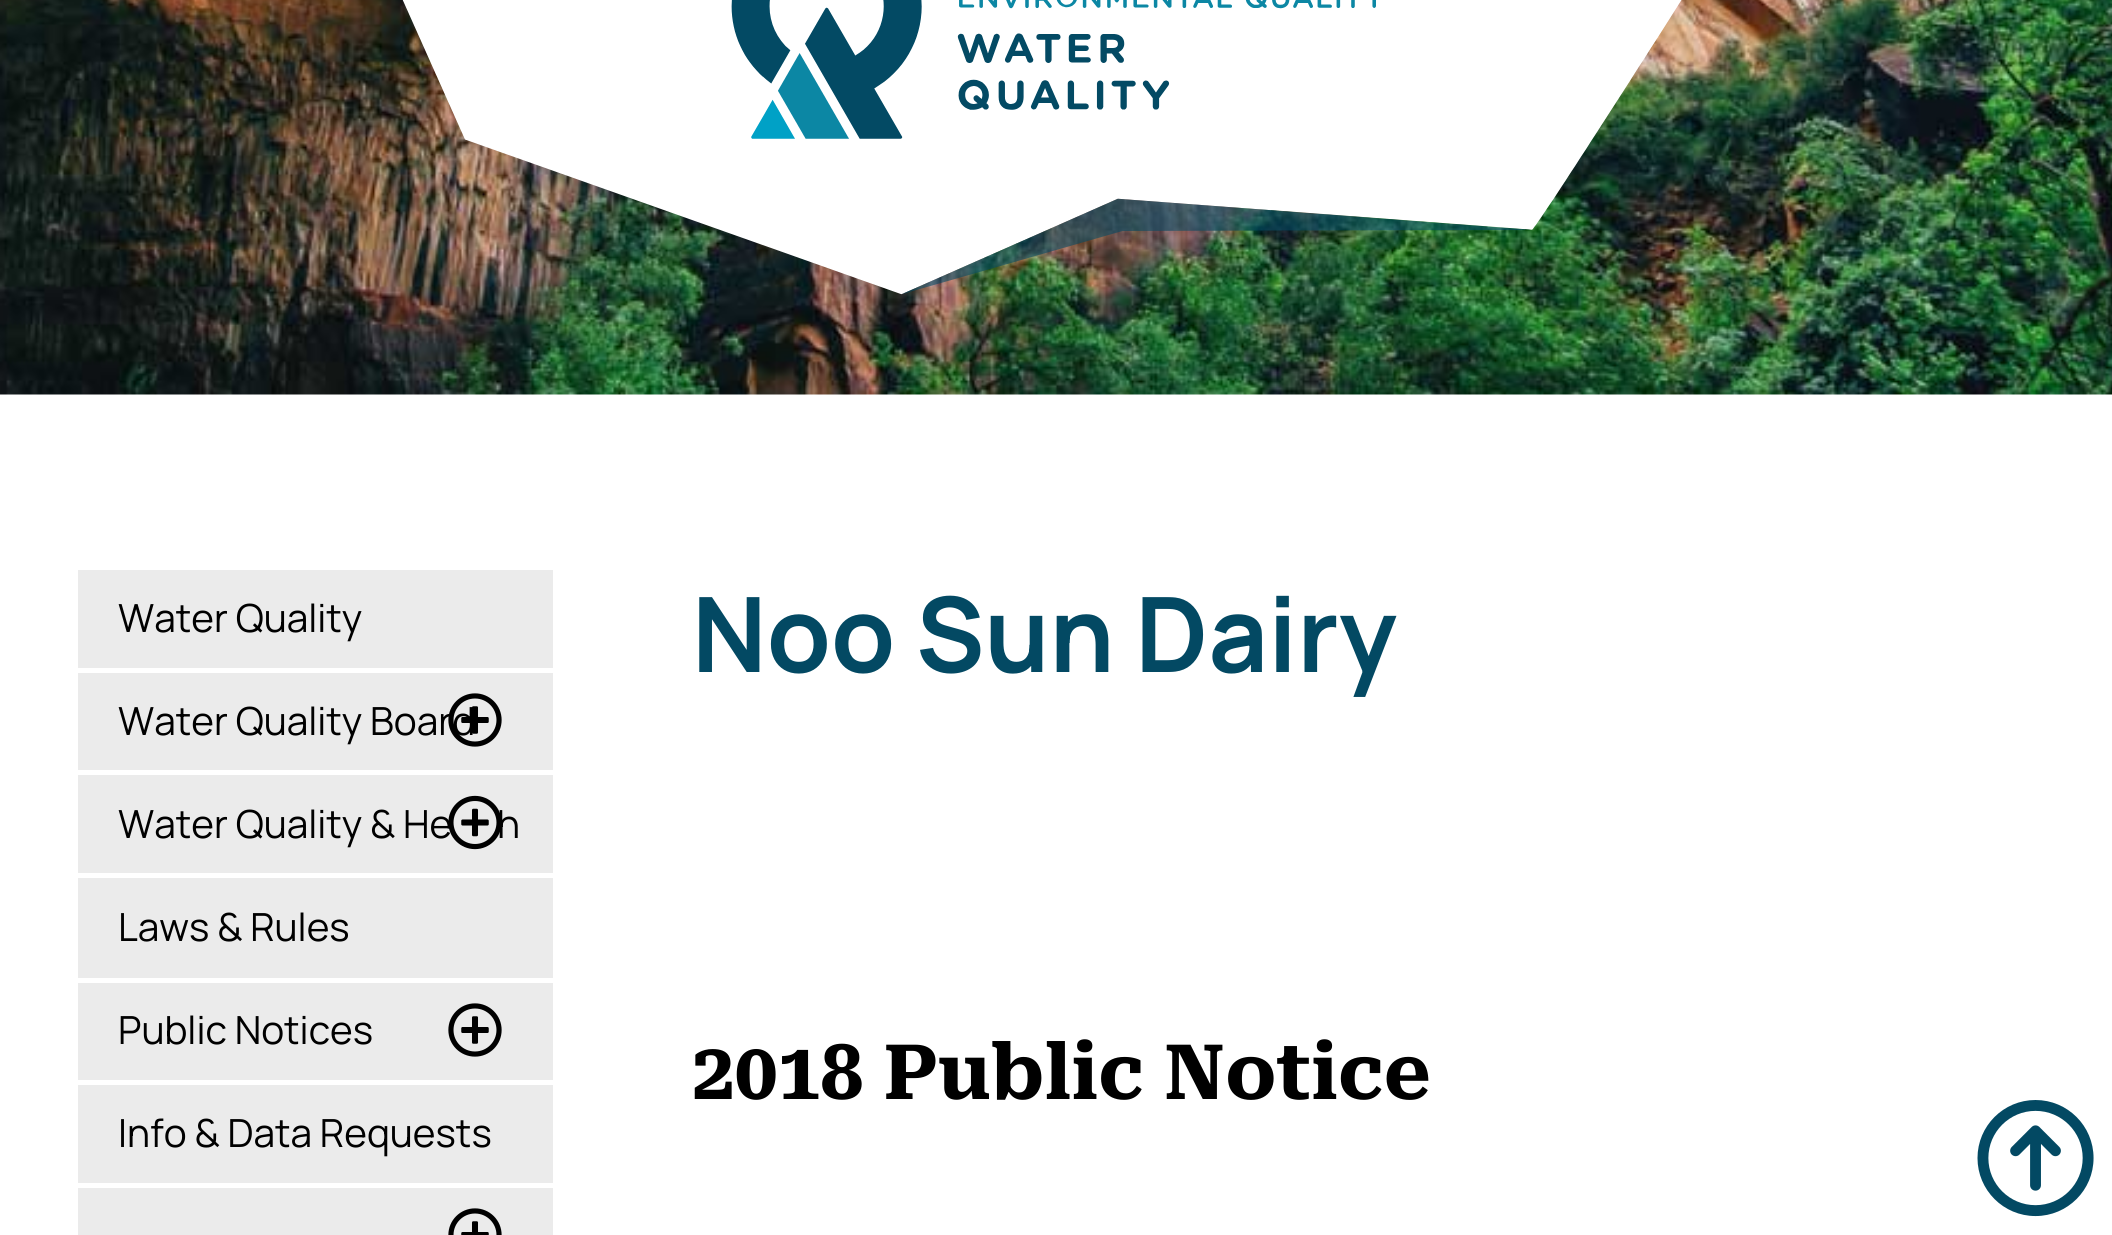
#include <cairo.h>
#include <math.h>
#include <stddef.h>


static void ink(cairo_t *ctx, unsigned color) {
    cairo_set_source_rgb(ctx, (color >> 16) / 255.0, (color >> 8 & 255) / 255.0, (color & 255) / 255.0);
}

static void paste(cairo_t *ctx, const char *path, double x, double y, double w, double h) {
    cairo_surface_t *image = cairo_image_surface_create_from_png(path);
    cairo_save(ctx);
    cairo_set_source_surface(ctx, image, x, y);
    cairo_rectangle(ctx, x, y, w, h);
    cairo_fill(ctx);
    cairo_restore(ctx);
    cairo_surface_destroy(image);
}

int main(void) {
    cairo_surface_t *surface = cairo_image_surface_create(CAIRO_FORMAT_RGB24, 2112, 1235);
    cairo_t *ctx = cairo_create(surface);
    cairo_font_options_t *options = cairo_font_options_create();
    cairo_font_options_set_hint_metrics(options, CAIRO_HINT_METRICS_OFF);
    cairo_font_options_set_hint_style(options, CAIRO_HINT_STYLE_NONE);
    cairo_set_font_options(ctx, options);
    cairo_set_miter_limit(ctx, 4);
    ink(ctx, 0xFFFFFF);
    cairo_paint(ctx);
    paste(ctx, "media/1.png", 0, 0, 2112, 395);
    paste(ctx, "media/2.png", 402, 0, 1280, 295);
    ink(ctx, 0xEBEBEB);
    cairo_rectangle(ctx, 78, 570, 475, 98);
    cairo_fill(ctx);
    cairo_select_font_face(ctx, "Manrope ExtraLight", CAIRO_FONT_SLANT_NORMAL, CAIRO_FONT_WEIGHT_NORMAL);
    cairo_set_font_size(ctx, 38.75);
    ink(ctx, 0x000000);
    cairo_move_to(ctx, 118, 632);
    cairo_show_text(ctx, "Water Quality");
    ink(ctx, 0xEBEBEB);
    cairo_rectangle(ctx, 78, 673, 475, 97);
    cairo_fill(ctx);
    ink(ctx, 0x000000);
    cairo_move_to(ctx, 118, 735);
    cairo_show_text(ctx, "Water Quality Board");
    paste(ctx, "media/3.png", 448, 693, 54, 54);
    ink(ctx, 0xEBEBEB);
    cairo_rectangle(ctx, 78, 775, 475, 98);
    cairo_fill(ctx);
    ink(ctx, 0x000000);
    cairo_move_to(ctx, 118, 838);
    cairo_show_text(ctx, "Water Quality & He");
    cairo_move_to(ctx, 497, 838);
    cairo_show_text(ctx, "h");
    paste(ctx, "media/4.png", 448, 795, 52, 55);
    ink(ctx, 0xEBEBEB);
    cairo_rectangle(ctx, 78, 878, 475, 100);
    cairo_fill(ctx);
    ink(ctx, 0x000000);
    cairo_move_to(ctx, 118, 941);
    cairo_show_text(ctx, "Laws & Rules");
    ink(ctx, 0xEBEBEB);
    cairo_rectangle(ctx, 78, 983, 475, 97);
    cairo_fill(ctx);
    ink(ctx, 0x000000);
    cairo_move_to(ctx, 118, 1044);
    cairo_show_text(ctx, "Public Notices");
    paste(ctx, "media/5.png", 448, 1003, 54, 54);
    ink(ctx, 0xEBEBEB);
    cairo_rectangle(ctx, 78, 1085, 475, 98);
    cairo_fill(ctx);
    ink(ctx, 0x000000);
    cairo_move_to(ctx, 118, 1147);
    cairo_show_text(ctx, "Info & Data Requests");
    ink(ctx, 0xEBEBEB);
    cairo_rectangle(ctx, 78, 1188, 475, 47);
    cairo_fill(ctx);
    paste(ctx, "media/6.png", 448, 1208, 54, 27);
    cairo_select_font_face(ctx, "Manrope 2 ExtraLight", CAIRO_FONT_SLANT_NORMAL, CAIRO_FONT_WEIGHT_NORMAL);
    cairo_set_font_size(ctx, 104);
    ink(ctx, 0x034963);
    cairo_move_to(ctx, 692, 672);
    cairo_show_text(ctx, "Noo Sun Dairy");
    cairo_select_font_face(ctx, "Roboto Serif", CAIRO_FONT_SLANT_NORMAL, CAIRO_FONT_WEIGHT_BOLD);
    cairo_set_font_size(ctx, 76.5);
    ink(ctx, 0x000000);
    cairo_move_to(ctx, 692, 1099);
    cairo_show_text(ctx, "2018 Public Notice");
    paste(ctx, "media/7.png", 1977, 1100, 117, 117);
    cairo_surface_write_to_png(surface, "image.png");
    cairo_font_options_destroy(options);
    cairo_destroy(ctx);
    cairo_surface_destroy(surface);
    return 0;
}
